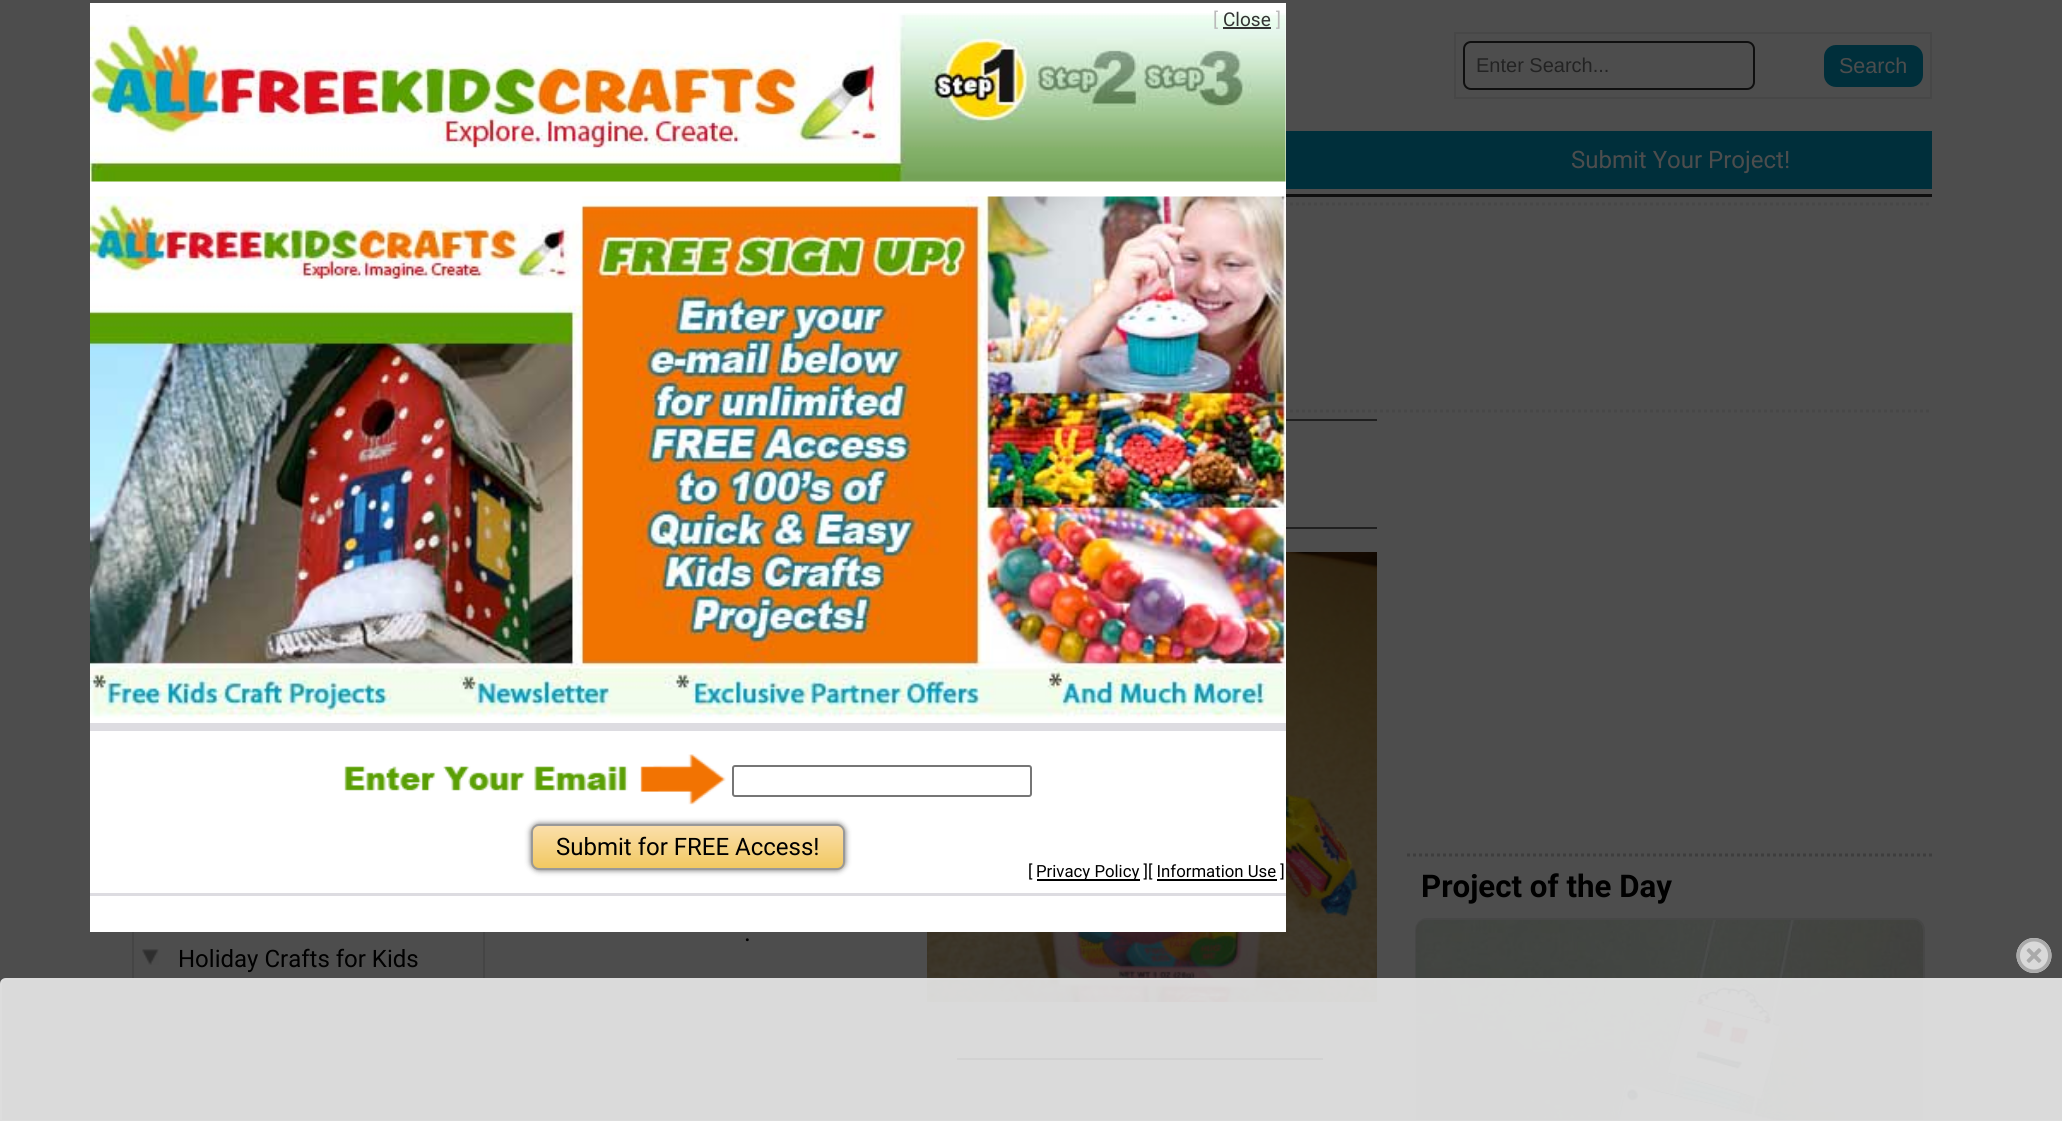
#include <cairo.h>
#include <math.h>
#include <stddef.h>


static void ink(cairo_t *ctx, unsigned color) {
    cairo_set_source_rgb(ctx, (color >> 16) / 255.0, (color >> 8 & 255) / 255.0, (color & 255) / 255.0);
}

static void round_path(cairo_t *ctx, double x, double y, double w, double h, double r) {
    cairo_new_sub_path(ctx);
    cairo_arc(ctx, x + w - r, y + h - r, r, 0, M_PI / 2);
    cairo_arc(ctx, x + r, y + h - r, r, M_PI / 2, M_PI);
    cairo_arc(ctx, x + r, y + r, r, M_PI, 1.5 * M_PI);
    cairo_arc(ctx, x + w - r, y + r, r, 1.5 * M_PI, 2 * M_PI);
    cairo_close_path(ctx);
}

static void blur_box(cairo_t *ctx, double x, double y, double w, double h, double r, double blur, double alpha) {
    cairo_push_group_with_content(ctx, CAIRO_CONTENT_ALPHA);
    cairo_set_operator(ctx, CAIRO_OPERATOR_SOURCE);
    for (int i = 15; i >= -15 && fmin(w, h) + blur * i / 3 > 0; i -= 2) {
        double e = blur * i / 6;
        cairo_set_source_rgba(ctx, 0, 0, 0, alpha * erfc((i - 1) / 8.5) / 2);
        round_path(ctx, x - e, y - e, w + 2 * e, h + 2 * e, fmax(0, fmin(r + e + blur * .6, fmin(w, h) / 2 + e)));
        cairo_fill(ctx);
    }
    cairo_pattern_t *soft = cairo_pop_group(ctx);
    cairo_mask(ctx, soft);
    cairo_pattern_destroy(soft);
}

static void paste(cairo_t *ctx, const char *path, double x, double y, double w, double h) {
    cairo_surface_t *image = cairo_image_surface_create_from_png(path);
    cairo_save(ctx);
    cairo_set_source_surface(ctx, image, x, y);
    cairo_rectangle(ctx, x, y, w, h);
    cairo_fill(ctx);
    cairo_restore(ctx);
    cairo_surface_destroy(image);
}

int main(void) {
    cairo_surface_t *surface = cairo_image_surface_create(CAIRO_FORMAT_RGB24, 2062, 1121);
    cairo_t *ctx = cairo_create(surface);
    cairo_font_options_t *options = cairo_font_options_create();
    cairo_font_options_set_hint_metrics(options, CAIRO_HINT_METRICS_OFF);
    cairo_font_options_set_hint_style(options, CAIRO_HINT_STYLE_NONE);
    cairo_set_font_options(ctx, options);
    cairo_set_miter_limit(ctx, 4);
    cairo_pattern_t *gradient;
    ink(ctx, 0x4D4D4D);
    cairo_paint(ctx);
    cairo_new_path(ctx);
    cairo_move_to(ctx, 132, 204);
    cairo_line_to(ctx, 1932, 204);
    ink(ctx, 0x474747);
    cairo_set_line_width(ctx, 3);
    cairo_set_dash(ctx, (double[]){3, 3}, 2, 0);
    cairo_stroke(ctx);
    cairo_new_path(ctx);
    cairo_move_to(ctx, 132, 411);
    cairo_line_to(ctx, 1932, 411);
    cairo_stroke(ctx);
    paste(ctx, "media/5.png", 927, 552, 450, 450);
    cairo_rectangle(ctx, 133, 876, 351, 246);
    ink(ctx, 0x454545);
    cairo_set_line_width(ctx, 2);
    cairo_set_dash(ctx, NULL, 0, 0);
    cairo_stroke(ctx);
    ink(ctx, 0xFFFFFF);
    cairo_rectangle(ctx, 90, 3, 1196, 929);
    cairo_fill(ctx);
    paste(ctx, "media/1.png", 90, 13, 1196, 169);
    cairo_select_font_face(ctx, "Roboto", CAIRO_FONT_SLANT_NORMAL, CAIRO_FONT_WEIGHT_NORMAL);
    cairo_set_font_size(ctx, 19);
    ink(ctx, 0xBBBBBB);
    cairo_move_to(ctx, 1213, 26);
    cairo_show_text(ctx, "[");
    ink(ctx, 0x333333);
    cairo_move_to(ctx, 1223, 26);
    cairo_show_text(ctx, "Close");
    cairo_rectangle(ctx, 1223, 27, 48, 2);
    cairo_fill(ctx);
    ink(ctx, 0xBBBBBB);
    cairo_move_to(ctx, 1276, 26);
    cairo_show_text(ctx, "]");
    paste(ctx, "media/2.png", 90, 196, 1196, 522);
    ink(ctx, 0xDDDCE1);
    cairo_rectangle(ctx, 90, 723, 1196, 8);
    cairo_fill(ctx);
    cairo_rectangle(ctx, 90, 893, 1196, 3);
    cairo_fill(ctx);
    paste(ctx, "media/3.png", 344, 754, 382, 51);
    round_path(ctx, 733, 766, 298, 30, 2);
    ink(ctx, 0x767676);
    cairo_stroke(ctx);
    ink(ctx, 0x323232);
    blur_box(ctx, 531, 824, 314, 46, 8, 3, 0.75);
    cairo_save(ctx);
    round_path(ctx, 531, 824, 314, 46, 8);
    cairo_clip(ctx);
    gradient = cairo_pattern_create_linear(688, 825, 688, 869);
    cairo_pattern_add_color_stop_rgba(gradient, 0, 0.984, 0.875, 0.675, 1);
    cairo_pattern_add_color_stop_rgba(gradient, 1, 0.945, 0.784, 0.376, 1);
    cairo_set_source(ctx, gradient);
    cairo_pattern_destroy(gradient);
    cairo_rectangle(ctx, 531, 825, 314, 44);
    cairo_fill(ctx);
    cairo_restore(ctx);
    round_path(ctx, 532, 825, 312, 44, 7);
    ink(ctx, 0x999999);
    cairo_stroke(ctx);
    cairo_set_font_size(ctx, 24);
    ink(ctx, 0x000000);
    cairo_move_to(ctx, 556, 855);
    cairo_show_text(ctx, "Submit for FREE Access!");
    cairo_set_font_size(ctx, 16.75);
    cairo_move_to(ctx, 1028, 877);
    cairo_show_text(ctx, "[");
    cairo_rectangle(ctx, 1037, 879, 103, 2);
    cairo_fill(ctx);
    cairo_move_to(ctx, 1036, 877);
    cairo_show_text(ctx, "Privacy Policy ][ Information Use ]");
    cairo_rectangle(ctx, 1157, 879, 120, 2);
    cairo_fill(ctx);
    ink(ctx, 0x0F0F0F);
    cairo_rectangle(ctx, 1286, 194, 646, 3);
    cairo_fill(ctx);
    cairo_rectangle(ctx, 1455, 33, 476, 65);
    ink(ctx, 0x474747);
    cairo_stroke(ctx);
    round_path(ctx, 1464, 42, 290, 47, 7);
    ink(ctx, 0x0F0F0F);
    cairo_stroke(ctx);
    cairo_select_font_face(ctx, "Liberation Sans", CAIRO_FONT_SLANT_NORMAL, CAIRO_FONT_WEIGHT_NORMAL);
    cairo_set_font_size(ctx, 20);
    ink(ctx, 0x232323);
    cairo_move_to(ctx, 1476, 72);
    cairo_show_text(ctx, "Enter Search...");
    ink(ctx, 0x002F3B);
    round_path(ctx, 1824, 45, 99, 42, 12);
    cairo_fill(ctx);
    cairo_set_font_size(ctx, 21.5);
    ink(ctx, 0x4D4D4D);
    cairo_move_to(ctx, 1839, 73);
    cairo_show_text(ctx, "Search");
    ink(ctx, 0x002F3B);
    cairo_rectangle(ctx, 1286, 131, 646, 58);
    cairo_fill(ctx);
    cairo_select_font_face(ctx, "Roboto", CAIRO_FONT_SLANT_NORMAL, CAIRO_FONT_WEIGHT_NORMAL);
    cairo_set_font_size(ctx, 24);
    ink(ctx, 0x4D4D4D);
    cairo_move_to(ctx, 1571, 168);
    cairo_show_text(ctx, "Submit Your Project!");
    cairo_new_path(ctx);
    cairo_move_to(ctx, 1407, 855);
    cairo_line_to(ctx, 1932, 855);
    ink(ctx, 0x3D3D3D);
    cairo_set_line_width(ctx, 3);
    cairo_set_dash(ctx, (double[]){3, 3}, 2, 0);
    cairo_stroke(ctx);
    cairo_select_font_face(ctx, "Roboto", CAIRO_FONT_SLANT_NORMAL, CAIRO_FONT_WEIGHT_BOLD);
    cairo_set_font_size(ctx, 31.25);
    ink(ctx, 0x000000);
    cairo_move_to(ctx, 1421, 897);
    cairo_show_text(ctx, "Project of the Day");
    round_path(ctx, 1416, 919, 508, 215, 11);
    ink(ctx, 0x474747);
    cairo_set_line_width(ctx, 2);
    cairo_set_dash(ctx, NULL, 0, 0);
    cairo_stroke(ctx);
    paste(ctx, "media/4.png", 1416, 920, 507, 200);
    ink(ctx, 0x1F1F1F);
    cairo_rectangle(ctx, 1286, 419, 91, 2);
    cairo_fill(ctx);
    cairo_rectangle(ctx, 1286, 527, 91, 2);
    cairo_fill(ctx);
    cairo_select_font_face(ctx, "Roboto", CAIRO_FONT_SLANT_NORMAL, CAIRO_FONT_WEIGHT_NORMAL);
    cairo_set_font_size(ctx, 26);
    ink(ctx, 0x000000);
    cairo_move_to(ctx, 744, 941);
    cairo_show_text(ctx, ".");
    cairo_rectangle(ctx, 957, 1058, 366, 2);
    cairo_fill(ctx);
    paste(ctx, "media/6.png", 142, 949, 17, 16);
    cairo_set_font_size(ctx, 24);
    cairo_move_to(ctx, 178, 967);
    cairo_show_text(ctx, "Holiday Crafts for Kids");
    cairo_set_source_rgba(ctx, 0.922, 0.922, 0.922, 0.89);
    cairo_new_path(ctx);
    cairo_move_to(ctx, 6, 979);
    cairo_line_to(ctx, 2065, 979);
    cairo_line_to(ctx, 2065, 1121);
    cairo_line_to(ctx, 1, 1121);
    cairo_line_to(ctx, 1, 984);
    cairo_curve_to(ctx, 1, 981, 3, 979, 6, 979);
    cairo_close_path(ctx);
    cairo_fill_preserve(ctx);
    ink(ctx, 0xDDDDDD);
    cairo_stroke(ctx);
    paste(ctx, "media/7.png", 2016, 938, 36, 35);
    cairo_surface_write_to_png(surface, "image.png");
    cairo_font_options_destroy(options);
    cairo_destroy(ctx);
    cairo_surface_destroy(surface);
    return 0;
}
